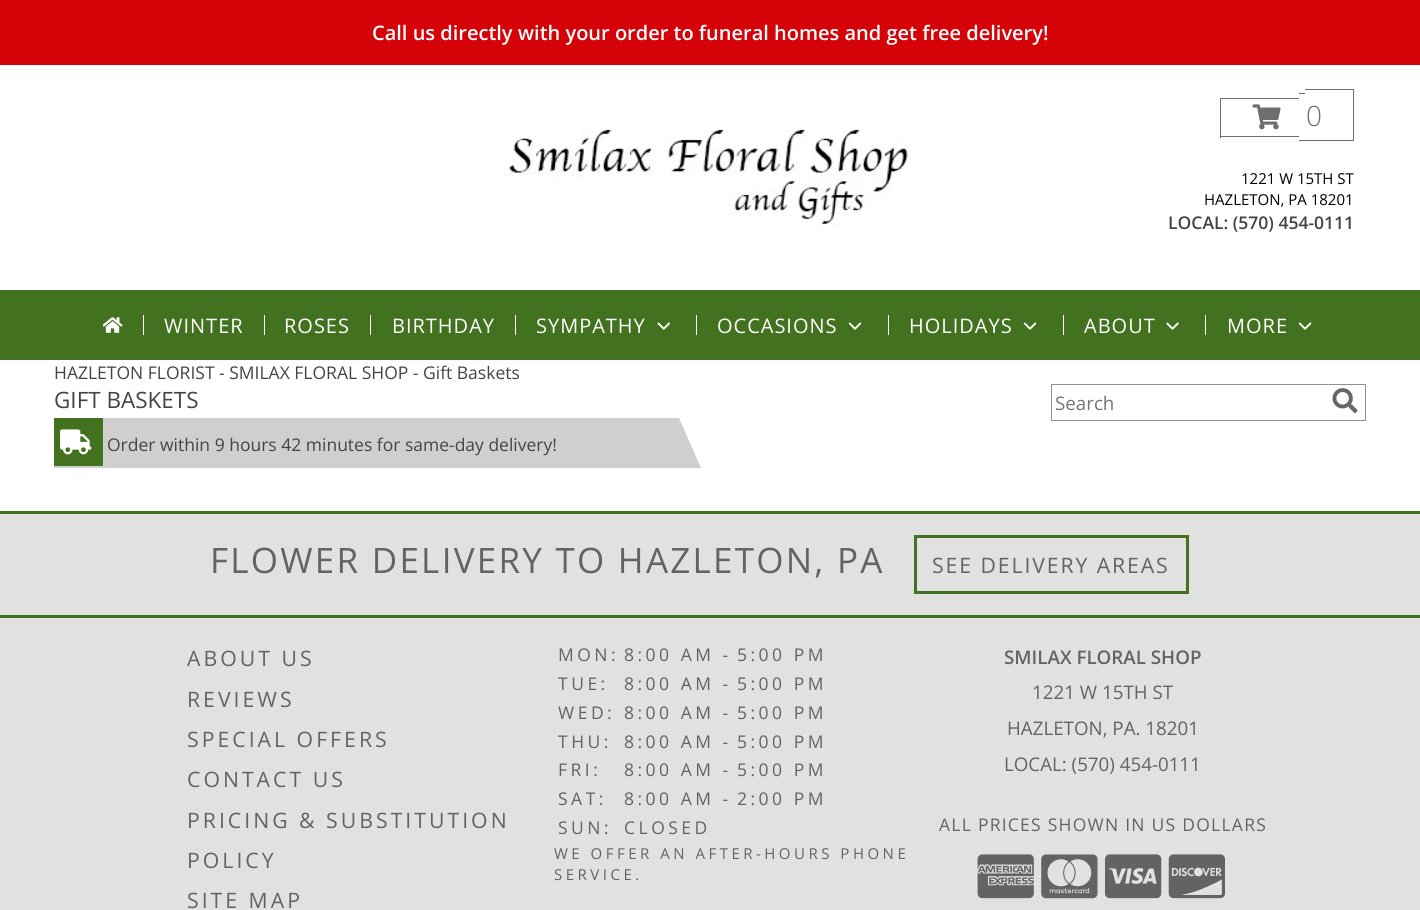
#include <cairo.h>
#include <math.h>
#include <stddef.h>

typedef struct { double x, y; const char *s; } line_t;
typedef struct { double x, y, w, h; unsigned color; } box_t;

static void ink(cairo_t *ctx, unsigned color) {
    cairo_set_source_rgb(ctx, (color >> 16) / 255.0, (color >> 8 & 255) / 255.0, (color & 255) / 255.0);
}

static void write_spaced(cairo_t *ctx, double x, double y, const char *s, double letter, double word) {
    cairo_move_to(ctx, x, y);
    while (*s) {
        char ch[5] = {0};
        int n = 0;
        do ch[n++] = *s++; while ((*s & 0xC0) == 0x80);
        cairo_show_text(ctx, ch);
        cairo_rel_move_to(ctx, letter + word * (*ch == ' '), 0);
    }
}

static void paste(cairo_t *ctx, const char *path, double x, double y, double w, double h) {
    cairo_surface_t *image = cairo_image_surface_create_from_png(path);
    cairo_save(ctx);
    cairo_set_source_surface(ctx, image, x, y);
    cairo_rectangle(ctx, x, y, w, h);
    cairo_fill(ctx);
    cairo_restore(ctx);
    cairo_surface_destroy(image);
}

int main(void) {
    cairo_surface_t *surface = cairo_image_surface_create(CAIRO_FORMAT_RGB24, 1420, 910);
    cairo_t *ctx = cairo_create(surface);
    cairo_font_options_t *options = cairo_font_options_create();
    cairo_font_options_set_hint_metrics(options, CAIRO_HINT_METRICS_OFF);
    cairo_font_options_set_hint_style(options, CAIRO_HINT_STYLE_NONE);
    cairo_set_font_options(ctx, options);
    cairo_set_miter_limit(ctx, 4);
    ink(ctx, 0xFFFFFF);
    cairo_paint(ctx);
    ink(ctx, 0xD50208);
    cairo_rectangle(ctx, 0, 0, 1420, 65);
    cairo_fill(ctx);
    cairo_select_font_face(ctx, "Open Sans SemiBold", CAIRO_FONT_SLANT_NORMAL, CAIRO_FONT_WEIGHT_NORMAL);
    cairo_set_font_size(ctx, 20);
    ink(ctx, 0xFFFFFF);
    cairo_move_to(ctx, 372, 40);
    cairo_show_text(ctx, "Call us directly with your order to funeral homes and get free delivery!");
    paste(ctx, "media/1.png", 503, 129, 408, 100);
    {
        static const box_t items[] = {
            {1220, 98, 79, 1, 0x6E6E6E},
            {1220, 136, 79, 1, 0x6E6E6E},
            {1220, 98, 1, 40, 0x6E6E6E},
            {1299, 93, 6, 1, 0x6E6E6E},
            {1299, 140, 6, 1, 0x6E6E6E},
            {1305, 89, 49, 1, 0x6E6E6E},
            {1353, 89, 1, 52, 0x6E6E6E},
            {1305, 140, 49, 1, 0x6E6E6E},
        };
        for (size_t i = 0; i < sizeof items / sizeof *items; i++) {
            ink(ctx, items[i].color);
            cairo_rectangle(ctx, items[i].x, items[i].y, items[i].w, items[i].h);
            cairo_fill(ctx);
        }
    }
    paste(ctx, "media/2.png", 1252, 104, 29, 26);
    cairo_select_font_face(ctx, "Open Sans Light", CAIRO_FONT_SLANT_NORMAL, CAIRO_FONT_WEIGHT_NORMAL);
    cairo_set_font_size(ctx, 28);
    cairo_move_to(ctx, 1306, 126);
    cairo_show_text(ctx, "0");
    cairo_select_font_face(ctx, "Open Sans", CAIRO_FONT_SLANT_NORMAL, CAIRO_FONT_WEIGHT_NORMAL);
    cairo_set_font_size(ctx, 15);
    ink(ctx, 0x000000);
    cairo_move_to(ctx, 1241, 184);
    cairo_show_text(ctx, "1221 W 15TH ST");
    cairo_move_to(ctx, 1204, 205);
    cairo_show_text(ctx, "HAZLETON, PA 18201");
    cairo_select_font_face(ctx, "Open Sans SemiBold", CAIRO_FONT_SLANT_NORMAL, CAIRO_FONT_WEIGHT_NORMAL);
    cairo_set_font_size(ctx, 17.5);
    ink(ctx, 0x444444);
    cairo_move_to(ctx, 1168, 229);
    cairo_show_text(ctx, "LOCAL: (570) 454-0111");
    ink(ctx, 0x42721F);
    cairo_rectangle(ctx, 0, 290, 1420, 70);
    cairo_fill(ctx);
    paste(ctx, "media/3.png", 103, 317, 20, 16);
    ink(ctx, 0xFFFFFF);
    cairo_rectangle(ctx, 143, 315, 1, 20);
    cairo_fill(ctx);
    cairo_select_font_face(ctx, "Open Sans", CAIRO_FONT_SLANT_NORMAL, CAIRO_FONT_WEIGHT_NORMAL);
    cairo_set_font_size(ctx, 20);
    write_spaced(ctx, 164, 333, "WINTER", 1, 0);
    cairo_rectangle(ctx, 264, 315, 1, 20);
    cairo_fill(ctx);
    write_spaced(ctx, 284, 333, "ROSES", 1, 0);
    cairo_rectangle(ctx, 370, 315, 1, 20);
    cairo_fill(ctx);
    write_spaced(ctx, 392, 333, "BIRTHDAY", 1, 0);
    cairo_rectangle(ctx, 515, 315, 1, 20);
    cairo_fill(ctx);
    write_spaced(ctx, 536, 333, "SYMPATHY", 1, 0);
    paste(ctx, "media/4.png", 657, 322, 13, 8);
    cairo_rectangle(ctx, 696, 315, 1, 20);
    cairo_fill(ctx);
    write_spaced(ctx, 717, 333, "OCCASIONS", 1, 0);
    paste(ctx, "media/5.png", 848, 322, 14, 8);
    cairo_rectangle(ctx, 888, 315, 1, 20);
    cairo_fill(ctx);
    write_spaced(ctx, 909, 333, "HOLIDAYS", 1, 0);
    paste(ctx, "media/5.png", 1023, 322, 14, 8);
    cairo_rectangle(ctx, 1063, 315, 1, 20);
    cairo_fill(ctx);
    write_spaced(ctx, 1084, 333, "ABOUT", 1, 0);
    paste(ctx, "media/6.png", 1166, 322, 13, 8);
    cairo_rectangle(ctx, 1205, 315, 1, 20);
    cairo_fill(ctx);
    write_spaced(ctx, 1227, 333, "MORE", 1, 0);
    paste(ctx, "media/5.png", 1298, 322, 14, 8);
    cairo_set_font_size(ctx, 17.5);
    ink(ctx, 0x444444);
    cairo_move_to(ctx, 54, 379);
    cairo_show_text(ctx, "HAZLETON FLORIST - SMILAX FLORAL SHOP - Gift Baskets");
    cairo_set_font_size(ctx, 22.5);
    cairo_move_to(ctx, 54, 408);
    cairo_show_text(ctx, "GIFT BASKETS");
    cairo_rectangle(ctx, 1051.5, 384.5, 314, 36);
    ink(ctx, 0x919191);
    cairo_set_line_width(ctx, 1);
    cairo_stroke(ctx);
    cairo_set_font_size(ctx, 18.75);
    ink(ctx, 0x757575);
    cairo_move_to(ctx, 1055, 410);
    cairo_show_text(ctx, "Search");
    paste(ctx, "media/7.png", 1332, 388, 26, 26);
    ink(ctx, 0xD0CFCD);
    cairo_new_path(ctx);
    cairo_move_to(ctx, 701, 468);
    cairo_line_to(ctx, 54, 468);
    cairo_line_to(ctx, 54, 418);
    cairo_line_to(ctx, 679, 418);
    cairo_close_path(ctx);
    cairo_fill(ctx);
    ink(ctx, 0x42721F);
    cairo_rectangle(ctx, 54, 418, 49, 48);
    cairo_fill(ctx);
    paste(ctx, "media/8.png", 60, 429, 32, 26);
    cairo_set_font_size(ctx, 17.5);
    ink(ctx, 0x444444);
    cairo_move_to(ctx, 107, 451);
    cairo_show_text(ctx, "Order within 9 hours 42 minutes for same-day delivery!");
    {
        static const box_t items[] = {
            {0, 514, 1420, 101, 0xE1E1E1},
            {0, 511, 1420, 3, 0x42721F},
            {0, 615, 1420, 3, 0x42721F},
        };
        for (size_t i = 0; i < sizeof items / sizeof *items; i++) {
            ink(ctx, items[i].color);
            cairo_rectangle(ctx, items[i].x, items[i].y, items[i].w, items[i].h);
            cairo_fill(ctx);
        }
    }
    cairo_set_font_size(ctx, 35);
    ink(ctx, 0x636363);
    write_spaced(ctx, 210, 573, "FLOWER DELIVERY TO HAZLETON, PA", 2.25, 0);
    cairo_rectangle(ctx, 915.5, 536.5, 272, 56);
    ink(ctx, 0x42721F);
    cairo_set_line_width(ctx, 3);
    cairo_stroke(ctx);
    cairo_set_font_size(ctx, 21.25);
    ink(ctx, 0x636363);
    write_spaced(ctx, 932, 573, "SEE DELIVERY AREAS", 1.9, 0);
    ink(ctx, 0xE1E1E1);
    cairo_rectangle(ctx, 0, 618, 1420, 292);
    cairo_fill(ctx);
    ink(ctx, 0x636363);
    {
        static const line_t items[] = {
            {187, 666, "ABOUT US"},
            {187, 707, "REVIEWS"},
            {187, 747, "SPECIAL OFFERS"},
            {187, 787, "CONTACT US"},
            {187, 828, "PRICING & SUBSTITUTION"},
            {187, 868, "POLICY"},
            {187, 908, "SITE MAP"},
        };
        for (size_t i = 0; i < sizeof items / sizeof *items; i++) {
            write_spaced(ctx, items[i].x, items[i].y, items[i].s, 3, 0);
        }
    }
    cairo_set_font_size(ctx, 17.5);
    {
        static const line_t items[] = {
            {558, 661, "MON:"},
            {624, 661, "8:00 AM -"},
            {737, 661, "5:00 PM"},
            {558, 690, "TUE:"},
            {624, 690, "8:00 AM -"},
            {737, 690, "5:00 PM"},
            {558, 719, "WED:"},
            {624, 719, "8:00 AM -"},
            {737, 719, "5:00 PM"},
            {558, 748, "THU:"},
            {624, 748, "8:00 AM -"},
            {737, 748, "5:00 PM"},
            {558, 776, "FRI:"},
            {624, 776, "8:00 AM -"},
            {737, 776, "5:00 PM"},
            {558, 805, "SAT:"},
            {624, 805, "8:00 AM -"},
            {737, 805, "2:00 PM"},
            {558, 834, "SUN:"},
            {624, 834, "CLOSED"},
        };
        for (size_t i = 0; i < sizeof items / sizeof *items; i++) {
            write_spaced(ctx, items[i].x, items[i].y, items[i].s, 3.5, 0);
        }
    }
    cairo_set_font_size(ctx, 15);
    write_spaced(ctx, 554, 859, "WE OFFER AN AFTER-HOURS PHONE", 3.5, 0);
    write_spaced(ctx, 554, 880, "SERVICE.", 3.5, 0);
    cairo_select_font_face(ctx, "Open Sans SemiBold", CAIRO_FONT_SLANT_NORMAL, CAIRO_FONT_WEIGHT_NORMAL);
    cairo_set_font_size(ctx, 18.75);
    cairo_move_to(ctx, 1004, 664);
    cairo_show_text(ctx, "SMILAX FLORAL SHOP");
    cairo_select_font_face(ctx, "Open Sans", CAIRO_FONT_SLANT_NORMAL, CAIRO_FONT_WEIGHT_NORMAL);
    {
        static const line_t items[] = {
            {1032, 699, "1221 W 15TH ST"},
            {1007, 735, "HAZLETON, PA. 18201"},
            {1004, 771, "LOCAL: (570) 454-0111"},
        };
        for (size_t i = 0; i < sizeof items / sizeof *items; i++) {
            cairo_move_to(ctx, items[i].x, items[i].y);
            cairo_show_text(ctx, items[i].s);
        }
    }
    cairo_set_font_size(ctx, 17.5);
    write_spaced(ctx, 939, 831, "ALL PRICES SHOWN IN US DOLLARS", 1.25, 0);
    paste(ctx, "media/9.png", 977, 854, 57, 45);
    paste(ctx, "media/10.png", 1041, 854, 57, 45);
    paste(ctx, "media/11.png", 1105, 854, 57, 45);
    paste(ctx, "media/12.png", 1168, 854, 57, 45);
    cairo_surface_write_to_png(surface, "image.png");
    cairo_font_options_destroy(options);
    cairo_destroy(ctx);
    cairo_surface_destroy(surface);
    return 0;
}
